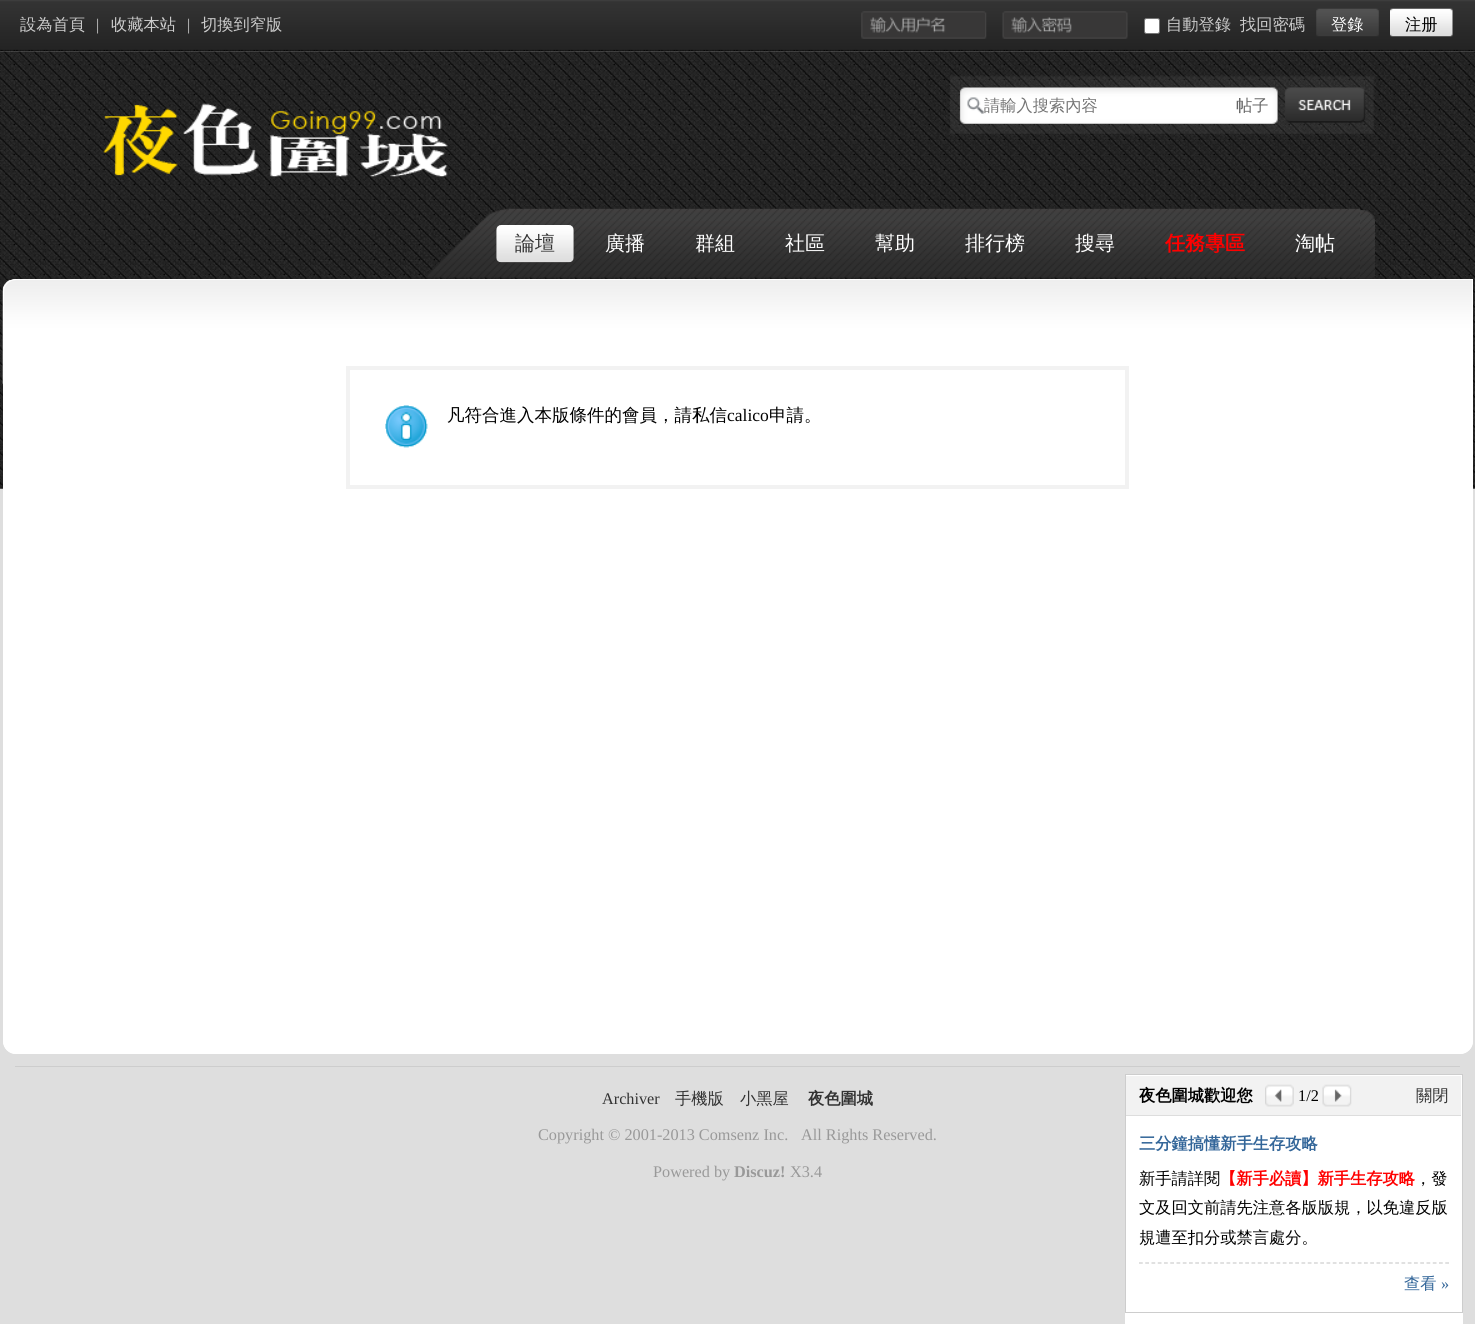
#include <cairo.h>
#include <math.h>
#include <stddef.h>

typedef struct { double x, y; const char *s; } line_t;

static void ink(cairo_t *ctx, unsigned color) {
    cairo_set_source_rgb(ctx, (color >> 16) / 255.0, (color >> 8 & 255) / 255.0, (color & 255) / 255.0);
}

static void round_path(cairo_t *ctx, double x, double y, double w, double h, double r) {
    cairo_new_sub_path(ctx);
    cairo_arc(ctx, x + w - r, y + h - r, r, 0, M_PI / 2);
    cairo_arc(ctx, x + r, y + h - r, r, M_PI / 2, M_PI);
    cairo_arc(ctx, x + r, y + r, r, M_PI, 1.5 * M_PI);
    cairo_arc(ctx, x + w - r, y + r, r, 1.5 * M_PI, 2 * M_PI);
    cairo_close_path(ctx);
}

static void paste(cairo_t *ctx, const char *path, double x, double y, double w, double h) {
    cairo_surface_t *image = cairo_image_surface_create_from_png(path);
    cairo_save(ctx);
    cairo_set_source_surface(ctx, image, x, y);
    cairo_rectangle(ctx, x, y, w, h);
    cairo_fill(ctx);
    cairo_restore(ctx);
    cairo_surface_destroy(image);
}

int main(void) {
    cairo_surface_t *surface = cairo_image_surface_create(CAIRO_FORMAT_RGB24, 1475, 1324);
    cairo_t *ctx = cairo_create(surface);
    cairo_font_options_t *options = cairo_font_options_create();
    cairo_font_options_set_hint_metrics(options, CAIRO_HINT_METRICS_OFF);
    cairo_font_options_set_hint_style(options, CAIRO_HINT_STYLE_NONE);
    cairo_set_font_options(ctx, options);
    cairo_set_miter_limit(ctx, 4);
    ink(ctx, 0xDEDEDE);
    cairo_paint(ctx);
    paste(ctx, "media/1.png", 0, 51, 1475, 438);
    paste(ctx, "media/2.png", 0, 0, 1475, 52);
    cairo_select_font_face(ctx, "WenQuanYi Zen Hei Medium", CAIRO_FONT_SLANT_NORMAL, CAIRO_FONT_WEIGHT_NORMAL);
    cairo_set_font_size(ctx, 16.25);
    ink(ctx, 0xCCCCCC);
    cairo_move_to(ctx, 20, 30);
    cairo_show_text(ctx, "設為首頁");
    cairo_select_font_face(ctx, "Liberation Serif", CAIRO_FONT_SLANT_NORMAL, CAIRO_FONT_WEIGHT_NORMAL);
    cairo_move_to(ctx, 96, 30);
    cairo_show_text(ctx, "|");
    cairo_select_font_face(ctx, "WenQuanYi Zen Hei Medium", CAIRO_FONT_SLANT_NORMAL, CAIRO_FONT_WEIGHT_NORMAL);
    cairo_move_to(ctx, 111, 30);
    cairo_show_text(ctx, "收藏本站");
    cairo_select_font_face(ctx, "Liberation Serif", CAIRO_FONT_SLANT_NORMAL, CAIRO_FONT_WEIGHT_NORMAL);
    cairo_move_to(ctx, 187, 30);
    cairo_show_text(ctx, "|");
    cairo_select_font_face(ctx, "WenQuanYi Zen Hei Medium", CAIRO_FONT_SLANT_NORMAL, CAIRO_FONT_WEIGHT_NORMAL);
    cairo_move_to(ctx, 201, 30);
    cairo_show_text(ctx, "切換到窄版");
    paste(ctx, "media/3.png", 861, 11, 126, 28);
    paste(ctx, "media/4.png", 1002, 11, 126, 28);
    ink(ctx, 0xFFFFFF);
    round_path(ctx, 1144.5, 18.5, 15, 15, 2);
    cairo_fill_preserve(ctx);
    ink(ctx, 0x767676);
    cairo_set_line_width(ctx, 1);
    cairo_stroke(ctx);
    ink(ctx, 0xCCCCCC);
    cairo_move_to(ctx, 1166, 30);
    cairo_show_text(ctx, "自動登錄");
    cairo_move_to(ctx, 1240, 30);
    cairo_show_text(ctx, "找回密碼");
    paste(ctx, "media/5.png", 1316, 8, 63, 29);
    ink(ctx, 0xFFFFFF);
    cairo_move_to(ctx, 1331, 30);
    cairo_show_text(ctx, "登錄");
    paste(ctx, "media/6.png", 1390, 8, 63, 29);
    ink(ctx, 0x000000);
    cairo_move_to(ctx, 1405, 30);
    cairo_show_text(ctx, "注册");
    paste(ctx, "media/7.png", 103, 103, 345, 74);
    paste(ctx, "media/8.png", 950, 76, 424, 58);
    ink(ctx, 0x757575);
    cairo_move_to(ctx, 984, 111);
    cairo_show_text(ctx, "請輸入搜索內容");
    ink(ctx, 0x666666);
    cairo_move_to(ctx, 1236, 111);
    cairo_show_text(ctx, "帖子");
    paste(ctx, "media/9.png", 1355, 210, 20, 69);
    paste(ctx, "media/10.png", 427, 208, 933, 70);
    paste(ctx, "media/11.png", 496, 225, 78, 38);
    cairo_set_font_size(ctx, 20);
    ink(ctx, 0x333333);
    cairo_move_to(ctx, 515, 250);
    cairo_show_text(ctx, "論壇");
    ink(ctx, 0xFFFFFF);
    {
        static const line_t items[] = {
            {605, 250, "廣播"},
            {695, 250, "群組"},
            {785, 250, "社區"},
            {875, 250, "幫助"},
            {965, 250, "排行榜"},
            {1075, 250, "搜尋"},
        };
        for (size_t i = 0; i < sizeof items / sizeof *items; i++) {
            cairo_move_to(ctx, items[i].x, items[i].y);
            cairo_show_text(ctx, items[i].s);
        }
    }
    cairo_select_font_face(ctx, "WenQuanYi Zen Hei", CAIRO_FONT_SLANT_NORMAL, CAIRO_FONT_WEIGHT_BOLD);
    ink(ctx, 0xFF0000);
    cairo_move_to(ctx, 1165, 250);
    cairo_show_text(ctx, "任務專區");
    cairo_select_font_face(ctx, "WenQuanYi Zen Hei Medium", CAIRO_FONT_SLANT_NORMAL, CAIRO_FONT_WEIGHT_NORMAL);
    ink(ctx, 0xFFFFFF);
    cairo_move_to(ctx, 1295, 250);
    cairo_show_text(ctx, "淘帖");
    cairo_new_path(ctx);
    cairo_move_to(ctx, 16, 279);
    cairo_line_to(ctx, 1473, 279);
    cairo_line_to(ctx, 1473, 1041);
    cairo_curve_to(ctx, 1473, 1048, 1467, 1054, 1460, 1054);
    cairo_line_to(ctx, 16, 1054);
    cairo_curve_to(ctx, 9, 1054, 3, 1048, 3, 1041);
    cairo_line_to(ctx, 3, 292);
    cairo_curve_to(ctx, 3, 285, 9, 279, 16, 279);
    cairo_close_path(ctx);
    cairo_fill(ctx);
    paste(ctx, "media/12.png", 2, 280, 1470, 104);
    cairo_new_path(ctx);
    cairo_move_to(ctx, 16, 279.5);
    cairo_line_to(ctx, 1472.5, 279.5);
    cairo_line_to(ctx, 1472.5, 1041);
    cairo_curve_to(ctx, 1472.5, 1048, 1467, 1053.5, 1460, 1053.5);
    cairo_line_to(ctx, 16, 1053.5);
    cairo_curve_to(ctx, 9, 1053.5, 3.5, 1048, 3.5, 1041);
    cairo_line_to(ctx, 3.5, 292);
    cairo_curve_to(ctx, 3.5, 285, 9, 279.5, 16, 279.5);
    cairo_close_path(ctx);
    cairo_stroke(ctx);
    cairo_rectangle(ctx, 348, 368, 779, 119);
    ink(ctx, 0xF2F2F2);
    cairo_set_line_width(ctx, 4);
    cairo_stroke(ctx);
    paste(ctx, "media/13.png", 385, 405, 43, 43);
    cairo_set_font_size(ctx, 17.5);
    ink(ctx, 0x000000);
    cairo_move_to(ctx, 447, 421);
    cairo_show_text(ctx, "凡符合進入本版條件的會員，請私信");
    cairo_select_font_face(ctx, "Liberation Serif", CAIRO_FONT_SLANT_NORMAL, CAIRO_FONT_WEIGHT_NORMAL);
    cairo_move_to(ctx, 727, 421);
    cairo_show_text(ctx, "calico");
    cairo_select_font_face(ctx, "WenQuanYi Zen Hei Medium", CAIRO_FONT_SLANT_NORMAL, CAIRO_FONT_WEIGHT_NORMAL);
    cairo_move_to(ctx, 769, 421);
    cairo_show_text(ctx, "申請。");
    ink(ctx, 0xCDCDCD);
    cairo_rectangle(ctx, 15, 1066, 1445, 1);
    cairo_fill(ctx);
    cairo_select_font_face(ctx, "Liberation Serif", CAIRO_FONT_SLANT_NORMAL, CAIRO_FONT_WEIGHT_NORMAL);
    cairo_set_font_size(ctx, 16.25);
    ink(ctx, 0x333333);
    cairo_move_to(ctx, 602, 1104);
    cairo_show_text(ctx, "Archiver");
    cairo_select_font_face(ctx, "WenQuanYi Zen Hei Medium", CAIRO_FONT_SLANT_NORMAL, CAIRO_FONT_WEIGHT_NORMAL);
    cairo_move_to(ctx, 675, 1104);
    cairo_show_text(ctx, "手機版");
    cairo_move_to(ctx, 740, 1104);
    cairo_show_text(ctx, "小黑屋");
    cairo_select_font_face(ctx, "WenQuanYi Zen Hei", CAIRO_FONT_SLANT_NORMAL, CAIRO_FONT_WEIGHT_BOLD);
    cairo_move_to(ctx, 808, 1104);
    cairo_show_text(ctx, "夜色圍城");
    cairo_select_font_face(ctx, "Liberation Serif", CAIRO_FONT_SLANT_NORMAL, CAIRO_FONT_WEIGHT_NORMAL);
    ink(ctx, 0x999999);
    {
        static const line_t items[] = {
            {538, 1140, "Copyright © 2001-2013 Comsenz Inc."},
            {801, 1140, "All Rights Reserved."},
            {653, 1177, "Powered by"},
        };
        for (size_t i = 0; i < sizeof items / sizeof *items; i++) {
            cairo_move_to(ctx, items[i].x, items[i].y);
            cairo_show_text(ctx, items[i].s);
        }
    }
    cairo_select_font_face(ctx, "Liberation Serif", CAIRO_FONT_SLANT_NORMAL, CAIRO_FONT_WEIGHT_BOLD);
    cairo_move_to(ctx, 734, 1177);
    cairo_show_text(ctx, "Discuz!");
    cairo_select_font_face(ctx, "Liberation Serif", CAIRO_FONT_SLANT_NORMAL, CAIRO_FONT_WEIGHT_NORMAL);
    cairo_move_to(ctx, 790, 1177);
    cairo_show_text(ctx, "X3.4");
    ink(ctx, 0xFFFFFF);
    cairo_rectangle(ctx, 1125, 1075, 338, 249);
    cairo_fill(ctx);
    cairo_rectangle(ctx, 1125.5, 1074.5, 337, 238);
    ink(ctx, 0xCDCDCD);
    cairo_set_line_width(ctx, 1);
    cairo_stroke(ctx);
    ink(ctx, 0xF2F2F2);
    cairo_rectangle(ctx, 1126, 1076, 335, 39);
    cairo_fill(ctx);
    ink(ctx, 0xDDDDDD);
    cairo_rectangle(ctx, 1126, 1115, 335, 1);
    cairo_fill(ctx);
    cairo_select_font_face(ctx, "WenQuanYi Zen Hei", CAIRO_FONT_SLANT_NORMAL, CAIRO_FONT_WEIGHT_BOLD);
    ink(ctx, 0x000000);
    cairo_move_to(ctx, 1139, 1101);
    cairo_show_text(ctx, "夜色圍城歡迎您");
    paste(ctx, "media/14.png", 1265, 1084, 29, 23);
    cairo_select_font_face(ctx, "Liberation Serif", CAIRO_FONT_SLANT_NORMAL, CAIRO_FONT_WEIGHT_NORMAL);
    cairo_move_to(ctx, 1298, 1101);
    cairo_show_text(ctx, "1/2");
    paste(ctx, "media/15.png", 1322, 1084, 30, 23);
    cairo_select_font_face(ctx, "WenQuanYi Zen Hei Medium", CAIRO_FONT_SLANT_NORMAL, CAIRO_FONT_WEIGHT_NORMAL);
    ink(ctx, 0x333333);
    cairo_move_to(ctx, 1416, 1101);
    cairo_show_text(ctx, "關閉");
    cairo_new_path(ctx);
    cairo_move_to(ctx, 1139, 1263);
    cairo_line_to(ctx, 1449, 1263);
    ink(ctx, 0xCDCDCD);
    cairo_set_line_width(ctx, 1.2);
    cairo_set_dash(ctx, (double[]){3.75, 2.5}, 2, 0);
    cairo_stroke(ctx);
    cairo_select_font_face(ctx, "WenQuanYi Zen Hei", CAIRO_FONT_SLANT_NORMAL, CAIRO_FONT_WEIGHT_BOLD);
    ink(ctx, 0x336699);
    cairo_move_to(ctx, 1139, 1149);
    cairo_show_text(ctx, "三分鐘搞懂新手生存攻略");
    cairo_select_font_face(ctx, "WenQuanYi Zen Hei Medium", CAIRO_FONT_SLANT_NORMAL, CAIRO_FONT_WEIGHT_NORMAL);
    ink(ctx, 0x000000);
    cairo_move_to(ctx, 1139, 1184);
    cairo_show_text(ctx, "新手請詳閱");
    cairo_select_font_face(ctx, "WenQuanYi Zen Hei", CAIRO_FONT_SLANT_NORMAL, CAIRO_FONT_WEIGHT_BOLD);
    ink(ctx, 0xFF0000);
    cairo_move_to(ctx, 1220, 1184);
    cairo_show_text(ctx, "【新手必讀】新手生存攻略");
    cairo_select_font_face(ctx, "WenQuanYi Zen Hei Medium", CAIRO_FONT_SLANT_NORMAL, CAIRO_FONT_WEIGHT_NORMAL);
    ink(ctx, 0x000000);
    {
        static const line_t items[] = {
            {1415, 1184, "，發"},
            {1139, 1213, "文及回文前請先注意各版版規，以免違反版"},
            {1139, 1243, "規遭至扣分或禁言處分。"},
        };
        for (size_t i = 0; i < sizeof items / sizeof *items; i++) {
            cairo_move_to(ctx, items[i].x, items[i].y);
            cairo_show_text(ctx, items[i].s);
        }
    }
    ink(ctx, 0x336699);
    cairo_move_to(ctx, 1404, 1289);
    cairo_show_text(ctx, "查看");
    cairo_select_font_face(ctx, "Liberation Serif", CAIRO_FONT_SLANT_NORMAL, CAIRO_FONT_WEIGHT_NORMAL);
    cairo_move_to(ctx, 1441, 1289);
    cairo_show_text(ctx, "»");
    cairo_surface_write_to_png(surface, "image.png");
    cairo_font_options_destroy(options);
    cairo_destroy(ctx);
    cairo_surface_destroy(surface);
    return 0;
}
